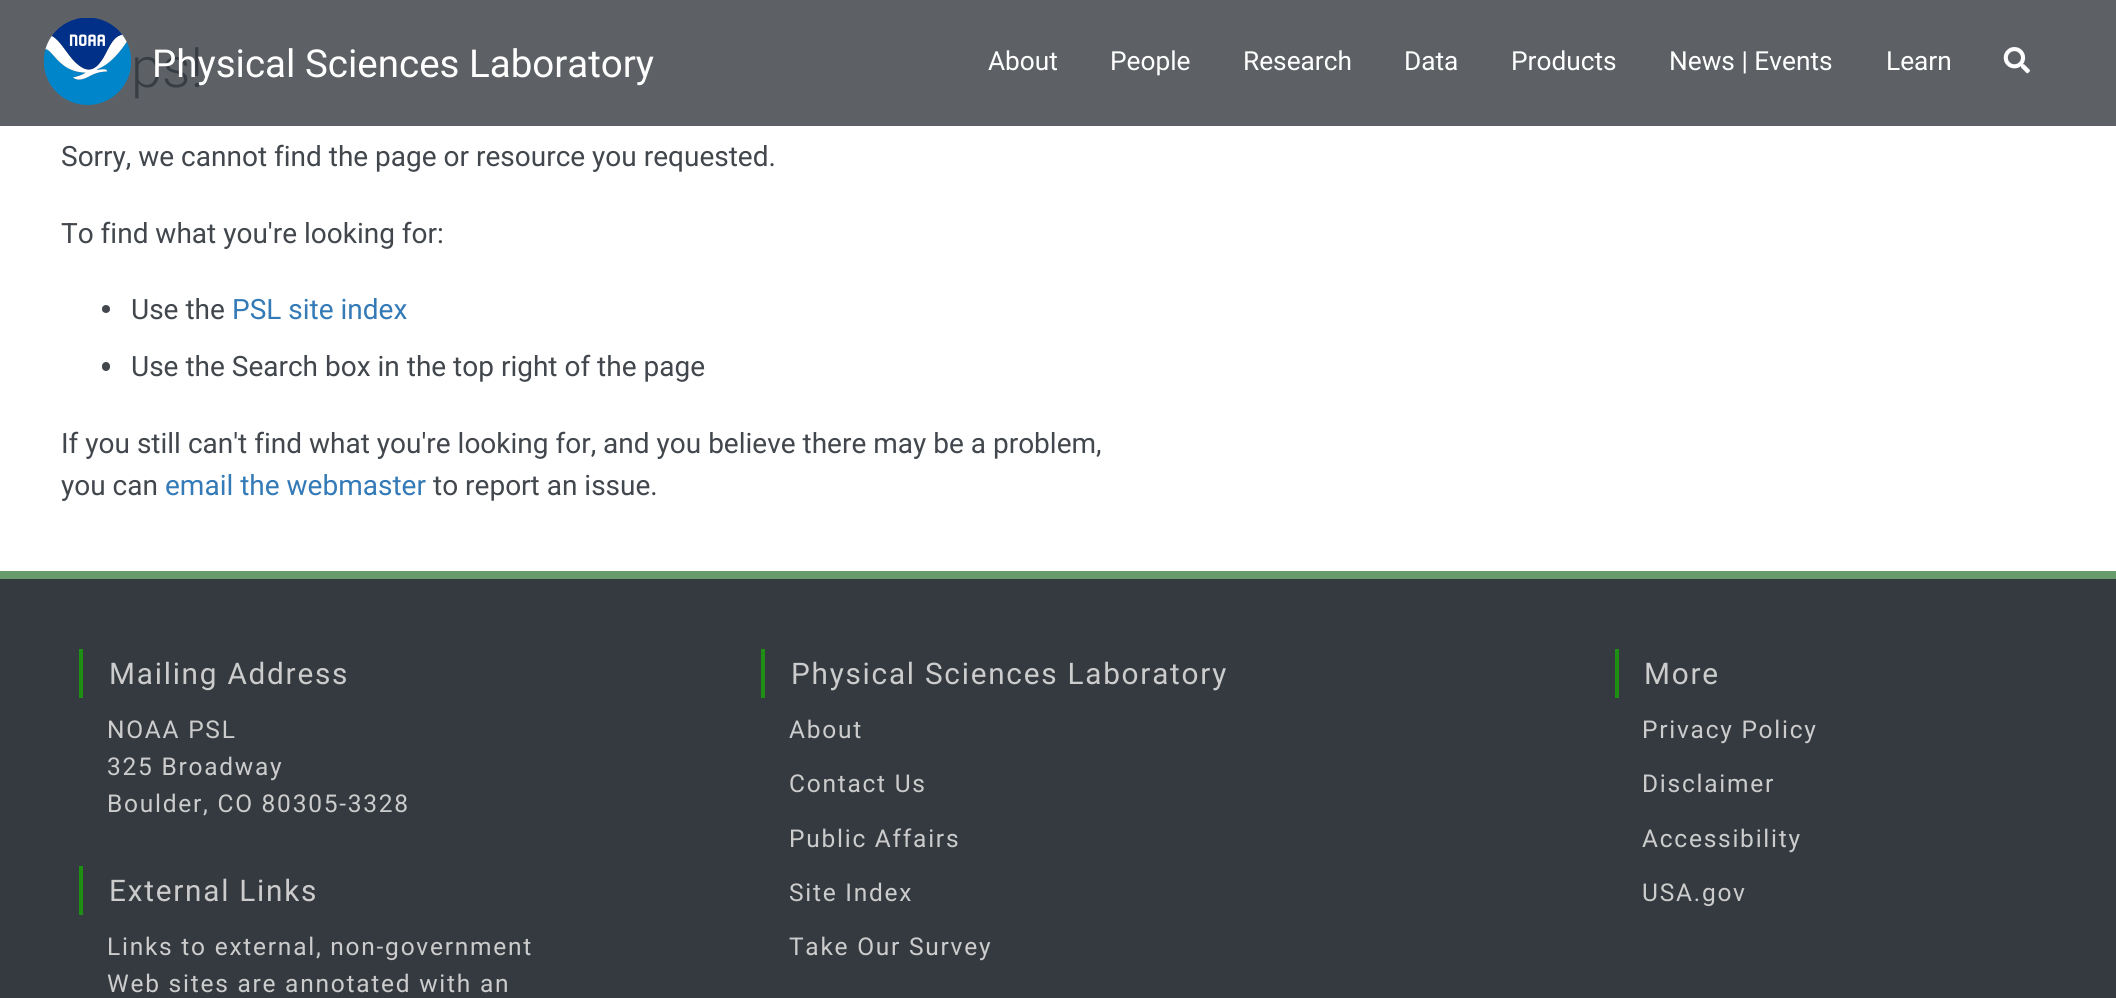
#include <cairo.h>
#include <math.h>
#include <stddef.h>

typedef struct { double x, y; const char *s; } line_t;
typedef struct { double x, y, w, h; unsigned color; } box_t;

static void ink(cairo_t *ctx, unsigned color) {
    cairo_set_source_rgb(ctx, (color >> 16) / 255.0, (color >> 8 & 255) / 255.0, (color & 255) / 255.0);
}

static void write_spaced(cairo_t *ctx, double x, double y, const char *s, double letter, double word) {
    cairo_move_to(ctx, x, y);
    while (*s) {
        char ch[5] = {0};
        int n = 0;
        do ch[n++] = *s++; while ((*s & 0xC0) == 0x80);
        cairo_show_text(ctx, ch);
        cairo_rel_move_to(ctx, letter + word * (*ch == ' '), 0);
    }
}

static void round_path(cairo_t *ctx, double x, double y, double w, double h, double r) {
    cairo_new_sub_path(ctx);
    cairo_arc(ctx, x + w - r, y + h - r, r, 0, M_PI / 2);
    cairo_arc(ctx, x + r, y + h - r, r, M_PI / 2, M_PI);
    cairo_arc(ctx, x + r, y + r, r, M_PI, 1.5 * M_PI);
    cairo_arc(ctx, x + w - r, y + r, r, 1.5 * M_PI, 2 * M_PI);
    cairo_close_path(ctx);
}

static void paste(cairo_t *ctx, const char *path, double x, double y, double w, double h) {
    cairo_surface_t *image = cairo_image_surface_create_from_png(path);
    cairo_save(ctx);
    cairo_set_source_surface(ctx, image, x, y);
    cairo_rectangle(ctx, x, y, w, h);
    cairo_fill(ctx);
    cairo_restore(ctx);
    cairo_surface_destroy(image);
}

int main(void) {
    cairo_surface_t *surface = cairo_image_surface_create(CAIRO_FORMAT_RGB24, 2116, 998);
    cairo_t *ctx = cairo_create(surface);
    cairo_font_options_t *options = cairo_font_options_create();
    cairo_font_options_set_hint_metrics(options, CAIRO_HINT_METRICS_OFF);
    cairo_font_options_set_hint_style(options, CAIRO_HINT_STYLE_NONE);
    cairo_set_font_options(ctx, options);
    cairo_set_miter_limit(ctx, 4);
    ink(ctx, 0xFFFFFF);
    cairo_paint(ctx);
    ink(ctx, 0x5D6166);
    cairo_rectangle(ctx, 0, 0, 2116, 126);
    cairo_fill(ctx);
    cairo_select_font_face(ctx, "Roboto Light", CAIRO_FONT_SLANT_NORMAL, CAIRO_FONT_WEIGHT_NORMAL);
    cairo_set_font_size(ctx, 56);
    ink(ctx, 0x373D43);
    cairo_move_to(ctx, 131, 87);
    cairo_show_text(ctx, "ps!");
    cairo_select_font_face(ctx, "Roboto", CAIRO_FONT_SLANT_NORMAL, CAIRO_FONT_WEIGHT_NORMAL);
    cairo_set_font_size(ctx, 28);
    ink(ctx, 0x41474D);
    cairo_move_to(ctx, 61, 166);
    cairo_show_text(ctx, "Sorry, we cannot find the page or resource you requested.");
    cairo_move_to(ctx, 61, 243);
    cairo_show_text(ctx, "To find what you're looking for:");
    cairo_new_path(ctx);
    cairo_arc(ctx, 106, 309, 4, 0, 2 * M_PI);
    cairo_fill(ctx);
    cairo_move_to(ctx, 131, 319);
    cairo_show_text(ctx, "Use the");
    ink(ctx, 0x337AB7);
    cairo_move_to(ctx, 232, 319);
    cairo_show_text(ctx, "PSL site index");
    ink(ctx, 0x41474D);
    round_path(ctx, 102, 362, 8, 9, 4);
    cairo_fill(ctx);
    {
        static const line_t items[] = {
            {131, 376, "Use the Search box in the top right of the page"},
            {61, 453, "If you still can't find what you're looking for, and you believe there may be a problem,"},
            {61, 495, "you can"},
        };
        for (size_t i = 0; i < sizeof items / sizeof *items; i++) {
            cairo_move_to(ctx, items[i].x, items[i].y);
            cairo_show_text(ctx, items[i].s);
        }
    }
    ink(ctx, 0x337AB7);
    cairo_move_to(ctx, 165, 495);
    cairo_show_text(ctx, "email the webmaster");
    ink(ctx, 0x41474D);
    cairo_move_to(ctx, 433, 495);
    cairo_show_text(ctx, "to report an issue.");
    paste(ctx, "media/1.png", 44, 18, 87, 87);
    cairo_set_font_size(ctx, 38.5);
    ink(ctx, 0xFFFFFF);
    cairo_move_to(ctx, 152, 77);
    cairo_show_text(ctx, "Physical Sciences Laboratory");
    cairo_set_font_size(ctx, 26.25);
    {
        static const line_t items[] = {
            {988, 70, "About"},
            {1110, 70, "People"},
            {1243, 70, "Research"},
            {1404, 70, "Data"},
            {1511, 70, "Products"},
            {1669, 70, "News | Events"},
            {1886, 70, "Learn"},
        };
        for (size_t i = 0; i < sizeof items / sizeof *items; i++) {
            cairo_move_to(ctx, items[i].x, items[i].y);
            cairo_show_text(ctx, items[i].s);
        }
    }
    paste(ctx, "media/2.png", 2003, 47, 27, 27);
    {
        static const box_t items[] = {
            {0, 579, 2116, 419, 0x343A40},
            {0, 571, 2116, 8, 0x679B6C},
            {79, 649, 4, 49, 0x1E8F13},
        };
        for (size_t i = 0; i < sizeof items / sizeof *items; i++) {
            ink(ctx, items[i].color);
            cairo_rectangle(ctx, items[i].x, items[i].y, items[i].w, items[i].h);
            cairo_fill(ctx);
        }
    }
    cairo_set_font_size(ctx, 29.75);
    ink(ctx, 0xCCCCCC);
    write_spaced(ctx, 109, 684, "Mailing Address", 1.75, 0);
    cairo_set_font_size(ctx, 24.5);
    {
        static const line_t items[] = {
            {107, 738, "NOAA PSL"},
            {107, 775, "325 Broadway"},
            {107, 812, "Boulder, CO 80305-3328"},
        };
        for (size_t i = 0; i < sizeof items / sizeof *items; i++) {
            write_spaced(ctx, items[i].x, items[i].y, items[i].s, 1.75, 0);
        }
    }
    ink(ctx, 0x1E8F13);
    cairo_rectangle(ctx, 79, 866, 4, 49);
    cairo_fill(ctx);
    cairo_set_font_size(ctx, 29.75);
    ink(ctx, 0xCCCCCC);
    write_spaced(ctx, 109, 901, "External Links", 1.75, 0);
    cairo_set_font_size(ctx, 24.5);
    write_spaced(ctx, 107, 955, "Links to external, non-government", 1.75, 0);
    write_spaced(ctx, 107, 992, "Web sites are annotated with an", 1.75, 0);
    ink(ctx, 0x1E8F13);
    cairo_rectangle(ctx, 761, 649, 4, 49);
    cairo_fill(ctx);
    cairo_set_font_size(ctx, 29.75);
    ink(ctx, 0xCCCCCC);
    write_spaced(ctx, 791, 684, "Physical Sciences Laboratory", 1.75, 0);
    cairo_set_font_size(ctx, 24.5);
    {
        static const line_t items[] = {
            {789, 738, "About"},
            {789, 792, "Contact Us"},
            {789, 847, "Public Affairs"},
            {789, 901, "Site Index"},
            {789, 955, "Take Our Survey"},
        };
        for (size_t i = 0; i < sizeof items / sizeof *items; i++) {
            write_spaced(ctx, items[i].x, items[i].y, items[i].s, 1.75, 0);
        }
    }
    ink(ctx, 0x1E8F13);
    cairo_rectangle(ctx, 1615, 649, 4, 49);
    cairo_fill(ctx);
    cairo_set_font_size(ctx, 29.75);
    ink(ctx, 0xCCCCCC);
    write_spaced(ctx, 1644, 684, "More", 1.75, 0);
    cairo_set_font_size(ctx, 24.5);
    {
        static const line_t items[] = {
            {1642, 738, "Privacy Policy"},
            {1642, 792, "Disclaimer"},
            {1642, 847, "Accessibility"},
            {1642, 901, "USA.gov"},
        };
        for (size_t i = 0; i < sizeof items / sizeof *items; i++) {
            write_spaced(ctx, items[i].x, items[i].y, items[i].s, 1.75, 0);
        }
    }
    cairo_surface_write_to_png(surface, "image.png");
    cairo_font_options_destroy(options);
    cairo_destroy(ctx);
    cairo_surface_destroy(surface);
    return 0;
}
